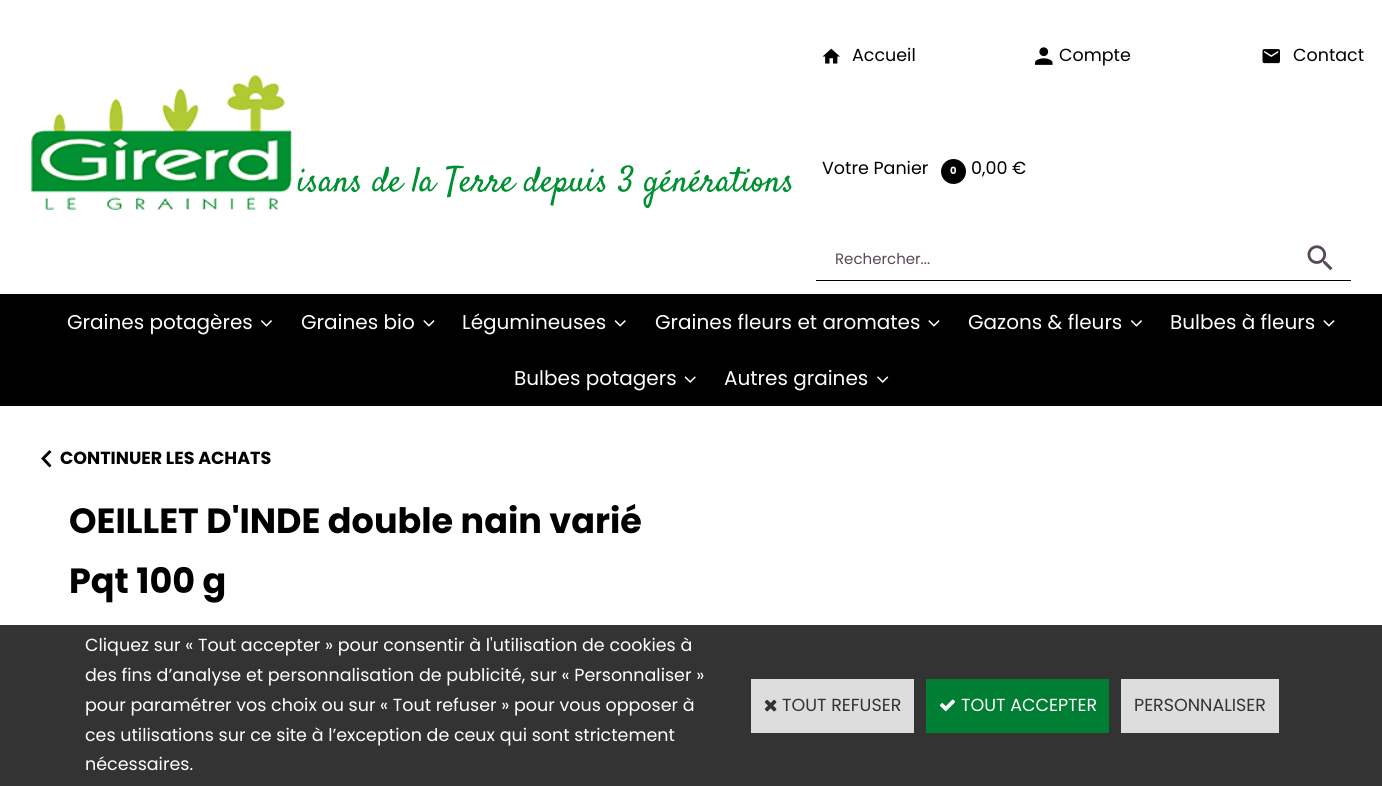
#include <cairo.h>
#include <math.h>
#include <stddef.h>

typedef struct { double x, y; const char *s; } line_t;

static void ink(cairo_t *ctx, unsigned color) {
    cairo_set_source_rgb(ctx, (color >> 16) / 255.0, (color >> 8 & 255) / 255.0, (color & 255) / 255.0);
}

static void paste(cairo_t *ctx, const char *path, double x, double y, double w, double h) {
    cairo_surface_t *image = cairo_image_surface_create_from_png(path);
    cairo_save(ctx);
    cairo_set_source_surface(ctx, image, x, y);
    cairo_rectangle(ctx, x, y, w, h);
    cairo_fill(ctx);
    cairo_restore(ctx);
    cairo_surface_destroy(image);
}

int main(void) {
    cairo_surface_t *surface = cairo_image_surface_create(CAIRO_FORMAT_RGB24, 1382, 786);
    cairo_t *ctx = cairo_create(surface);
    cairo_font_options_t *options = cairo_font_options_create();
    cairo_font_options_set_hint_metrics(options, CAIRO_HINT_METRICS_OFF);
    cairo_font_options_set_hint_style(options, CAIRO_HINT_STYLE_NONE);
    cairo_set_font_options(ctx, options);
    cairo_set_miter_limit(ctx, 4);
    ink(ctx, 0xFFFFFF);
    cairo_paint(ctx);
    paste(ctx, "media/1.png", 31, 75, 261, 135);
    cairo_select_font_face(ctx, "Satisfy", CAIRO_FONT_SLANT_NORMAL, CAIRO_FONT_WEIGHT_NORMAL);
    cairo_set_font_size(ctx, 35);
    ink(ctx, 0x009031);
    cairo_move_to(ctx, 297, 191);
    cairo_show_text(ctx, "isans de la Terre depuis 3 générations");
    paste(ctx, "media/2.png", 822, 48, 18, 16);
    cairo_select_font_face(ctx, "Poppins", CAIRO_FONT_SLANT_NORMAL, CAIRO_FONT_WEIGHT_NORMAL);
    cairo_set_font_size(ctx, 17.5);
    ink(ctx, 0x000000);
    cairo_move_to(ctx, 852, 61);
    cairo_show_text(ctx, "Accueil");
    paste(ctx, "media/3.png", 1035, 47, 18, 18);
    cairo_move_to(ctx, 1059, 61);
    cairo_show_text(ctx, "Compte");
    paste(ctx, "media/4.png", 1262, 49, 18, 15);
    cairo_move_to(ctx, 1293, 61);
    cairo_show_text(ctx, "Contact");
    cairo_move_to(ctx, 822, 174);
    cairo_show_text(ctx, "Votre Panier");
    cairo_new_path(ctx);
    cairo_arc(ctx, 953.5, 171.5, 12.5, 0, 2 * M_PI);
    cairo_fill(ctx);
    cairo_select_font_face(ctx, "Poppins", CAIRO_FONT_SLANT_NORMAL, CAIRO_FONT_WEIGHT_BOLD);
    cairo_set_font_size(ctx, 10);
    ink(ctx, 0xFFFFFF);
    cairo_move_to(ctx, 950, 174);
    cairo_show_text(ctx, "0");
    cairo_select_font_face(ctx, "Poppins", CAIRO_FONT_SLANT_NORMAL, CAIRO_FONT_WEIGHT_NORMAL);
    cairo_set_font_size(ctx, 17.5);
    ink(ctx, 0x000000);
    cairo_move_to(ctx, 971, 174);
    cairo_show_text(ctx, "0,00 €");
    cairo_rectangle(ctx, 816, 280, 535, 1);
    cairo_fill(ctx);
    cairo_set_font_size(ctx, 15);
    ink(ctx, 0x594856);
    cairo_move_to(ctx, 835, 264);
    cairo_show_text(ctx, "Rechercher...");
    paste(ctx, "media/5.png", 1307, 245, 26, 26);
    ink(ctx, 0x000000);
    cairo_rectangle(ctx, 0, 294, 1382, 112);
    cairo_fill(ctx);
    cairo_set_font_size(ctx, 20);
    ink(ctx, 0xFFFFFF);
    cairo_move_to(ctx, 67, 329);
    cairo_show_text(ctx, "Graines potagères");
    paste(ctx, "media/6.png", 260, 320, 12, 7);
    cairo_move_to(ctx, 301, 329);
    cairo_show_text(ctx, "Graines bio");
    paste(ctx, "media/7.png", 423, 320, 12, 7);
    cairo_move_to(ctx, 462, 329);
    cairo_show_text(ctx, "Légumineuses");
    paste(ctx, "media/8.png", 614, 320, 12, 7);
    cairo_move_to(ctx, 655, 329);
    cairo_show_text(ctx, "Graines fleurs et aromates");
    paste(ctx, "media/7.png", 928, 320, 12, 7);
    cairo_move_to(ctx, 968, 329);
    cairo_show_text(ctx, "Gazons & fleurs");
    paste(ctx, "media/6.png", 1130, 320, 12, 7);
    cairo_move_to(ctx, 1170, 329);
    cairo_show_text(ctx, "Bulbes à fleurs");
    paste(ctx, "media/7.png", 1323, 320, 12, 7);
    cairo_move_to(ctx, 514, 385);
    cairo_show_text(ctx, "Bulbes potagers");
    paste(ctx, "media/9.png", 684, 376, 12, 7);
    cairo_move_to(ctx, 724, 385);
    cairo_show_text(ctx, "Autres graines");
    paste(ctx, "media/10.png", 877, 376, 12, 7);
    ink(ctx, 0x000000);
    cairo_new_path(ctx);
    cairo_move_to(ctx, 51.5, 465.5);
    cairo_line_to(ctx, 45, 458.5);
    cairo_line_to(ctx, 51.5, 452);
    cairo_line_to(ctx, 49.5, 450);
    cairo_line_to(ctx, 41, 458.5);
    cairo_line_to(ctx, 49.5, 467.5);
    cairo_close_path(ctx);
    cairo_fill(ctx);
    cairo_select_font_face(ctx, "Poppins", CAIRO_FONT_SLANT_NORMAL, CAIRO_FONT_WEIGHT_BOLD);
    cairo_set_font_size(ctx, 17.5);
    cairo_move_to(ctx, 60, 464);
    cairo_show_text(ctx, "CONTINUER LES ACHATS");
    cairo_set_font_size(ctx, 35);
    cairo_move_to(ctx, 69, 533);
    cairo_show_text(ctx, "OEILLET D'INDE double nain varié");
    cairo_move_to(ctx, 69, 593);
    cairo_show_text(ctx, "Pqt 100 g");
    ink(ctx, 0x333333);
    cairo_rectangle(ctx, 0, 625, 1382, 161);
    cairo_fill(ctx);
    cairo_select_font_face(ctx, "Poppins", CAIRO_FONT_SLANT_NORMAL, CAIRO_FONT_WEIGHT_NORMAL);
    cairo_set_font_size(ctx, 17.5);
    ink(ctx, 0xFFFFFF);
    {
        static const line_t items[] = {
            {85, 651, "Cliquez sur « Tout accepter » pour consentir à l'utilisation de cookies à"},
            {85, 681, "des fins d’analyse et personnalisation de publicité, sur « Personnaliser »"},
            {85, 711, "pour paramétrer vos choix ou sur « Tout refuser » pour vous opposer à"},
            {85, 741, "ces utilisations sur ce site à l’exception de ceux qui sont strictement"},
            {85, 770, "nécessaires."},
        };
        for (size_t i = 0; i < sizeof items / sizeof *items; i++) {
            cairo_move_to(ctx, items[i].x, items[i].y);
            cairo_show_text(ctx, items[i].s);
        }
    }
    ink(ctx, 0xDDDDDD);
    cairo_rectangle(ctx, 751, 679, 163, 54);
    cairo_fill(ctx);
    paste(ctx, "media/11.png", 764, 699, 13, 13);
    ink(ctx, 0x333333);
    cairo_move_to(ctx, 782, 711);
    cairo_show_text(ctx, "TOUT REFUSER");
    ink(ctx, 0x007E33);
    cairo_rectangle(ctx, 926, 679, 183, 54);
    cairo_fill(ctx);
    paste(ctx, "media/12.png", 940, 699, 15, 13);
    ink(ctx, 0xFFFFFF);
    cairo_move_to(ctx, 961, 711);
    cairo_show_text(ctx, "TOUT ACCEPTER");
    ink(ctx, 0xDDDDDD);
    cairo_rectangle(ctx, 1121, 679, 158, 54);
    cairo_fill(ctx);
    ink(ctx, 0x333333);
    cairo_move_to(ctx, 1134, 711);
    cairo_show_text(ctx, "PERSONNALISER");
    cairo_surface_write_to_png(surface, "image.png");
    cairo_font_options_destroy(options);
    cairo_destroy(ctx);
    cairo_surface_destroy(surface);
    return 0;
}
